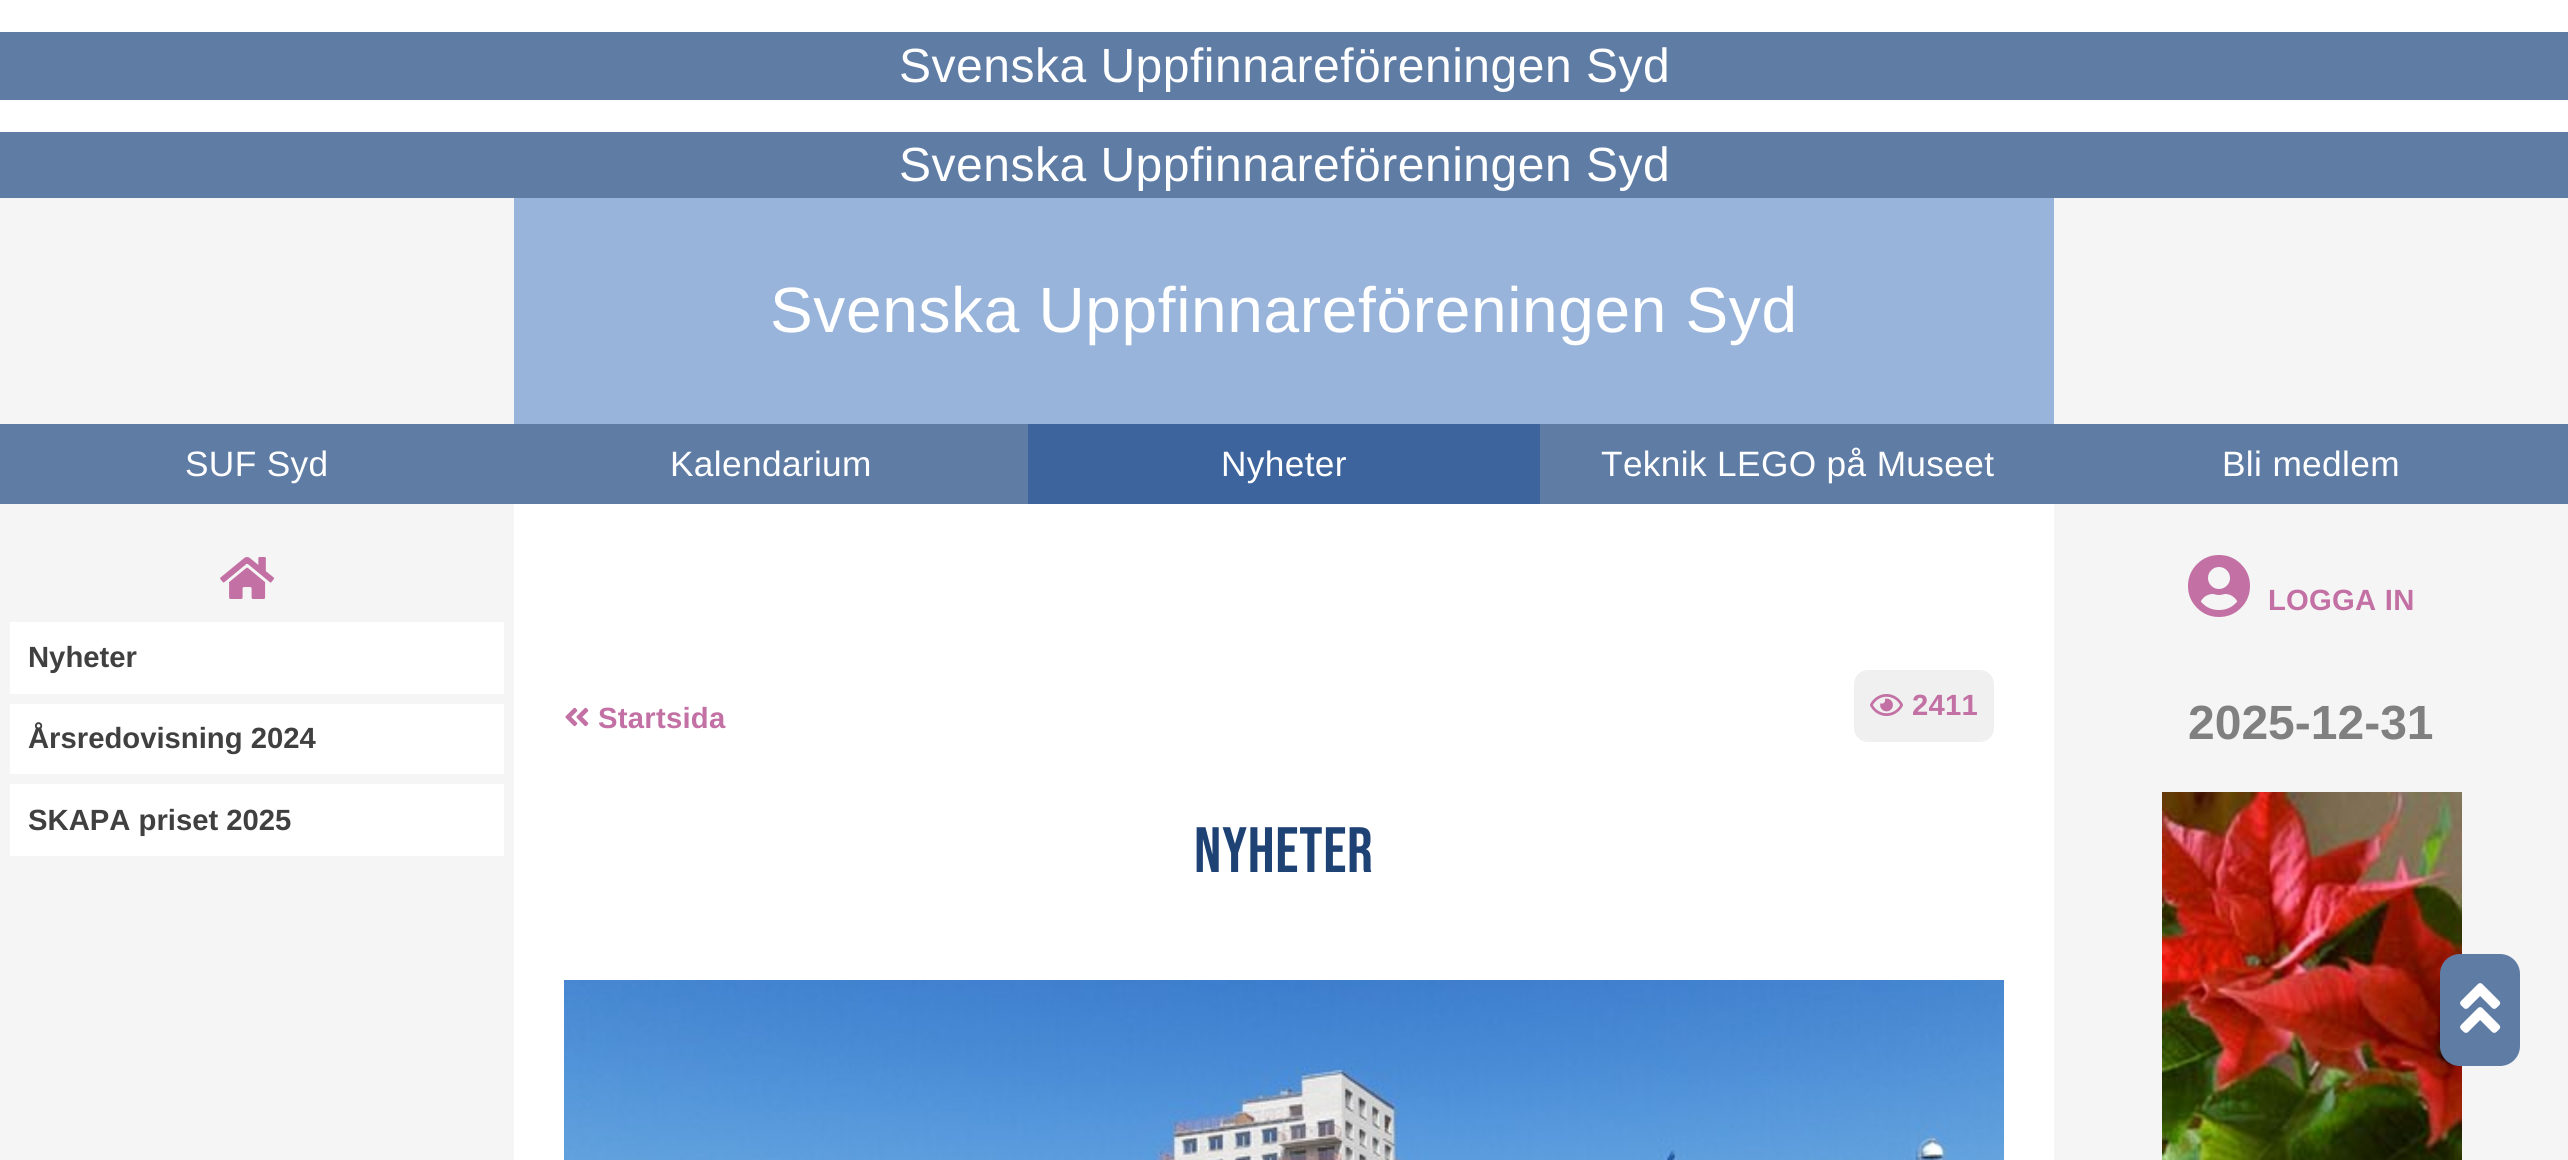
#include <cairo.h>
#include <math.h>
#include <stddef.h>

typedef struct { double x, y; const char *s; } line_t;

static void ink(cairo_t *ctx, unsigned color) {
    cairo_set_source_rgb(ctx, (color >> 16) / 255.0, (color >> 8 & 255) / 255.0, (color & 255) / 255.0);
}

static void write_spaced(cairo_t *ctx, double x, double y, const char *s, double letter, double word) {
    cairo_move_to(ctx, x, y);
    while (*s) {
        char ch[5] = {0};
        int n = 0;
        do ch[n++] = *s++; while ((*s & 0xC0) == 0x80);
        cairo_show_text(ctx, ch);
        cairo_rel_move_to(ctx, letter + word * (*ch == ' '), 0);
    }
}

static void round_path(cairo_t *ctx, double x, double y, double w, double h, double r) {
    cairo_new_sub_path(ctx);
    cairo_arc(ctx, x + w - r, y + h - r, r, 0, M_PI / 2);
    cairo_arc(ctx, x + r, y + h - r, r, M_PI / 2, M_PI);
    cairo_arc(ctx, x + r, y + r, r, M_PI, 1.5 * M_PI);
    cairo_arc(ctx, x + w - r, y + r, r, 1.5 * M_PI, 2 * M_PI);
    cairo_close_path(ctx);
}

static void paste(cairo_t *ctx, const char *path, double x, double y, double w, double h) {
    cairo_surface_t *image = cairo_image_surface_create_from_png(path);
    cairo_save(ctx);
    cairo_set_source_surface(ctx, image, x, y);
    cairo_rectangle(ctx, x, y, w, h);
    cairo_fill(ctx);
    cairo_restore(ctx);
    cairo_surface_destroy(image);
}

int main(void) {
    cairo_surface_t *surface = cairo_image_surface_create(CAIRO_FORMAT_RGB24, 2568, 1160);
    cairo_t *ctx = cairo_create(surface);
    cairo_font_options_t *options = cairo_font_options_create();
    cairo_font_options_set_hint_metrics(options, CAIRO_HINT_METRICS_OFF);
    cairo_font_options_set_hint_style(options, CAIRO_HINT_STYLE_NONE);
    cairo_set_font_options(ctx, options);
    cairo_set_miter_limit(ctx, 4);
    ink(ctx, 0xFFFFFF);
    cairo_paint(ctx);
    ink(ctx, 0x5F7CA5);
    cairo_rectangle(ctx, 0, 32, 2568, 68);
    cairo_fill(ctx);
    cairo_select_font_face(ctx, "Liberation Sans", CAIRO_FONT_SLANT_NORMAL, CAIRO_FONT_WEIGHT_NORMAL);
    cairo_set_font_size(ctx, 48);
    ink(ctx, 0xFFFFFF);
    write_spaced(ctx, 899, 82, "Svenska Uppfinnareföreningen Syd", 0.5, 0);
    ink(ctx, 0x5F7CA5);
    cairo_rectangle(ctx, 0, 132, 2568, 66);
    cairo_fill(ctx);
    ink(ctx, 0xFFFFFF);
    write_spaced(ctx, 899, 181, "Svenska Uppfinnareföreningen Syd", 0.5, 0);
    ink(ctx, 0xF5F5F5);
    cairo_rectangle(ctx, 0, 198, 514, 226);
    cairo_fill(ctx);
    ink(ctx, 0x99B4DB);
    cairo_rectangle(ctx, 514, 198, 1540, 226);
    cairo_fill(ctx);
    cairo_set_font_size(ctx, 64);
    ink(ctx, 0xFFFFFF);
    write_spaced(ctx, 770, 332, "Svenska Uppfinnareföreningen Syd", 0.65, 0);
    ink(ctx, 0xF5F5F5);
    cairo_rectangle(ctx, 2054, 198, 514, 226);
    cairo_fill(ctx);
    ink(ctx, 0x5F7CA5);
    cairo_rectangle(ctx, 0, 424, 2568, 80);
    cairo_fill(ctx);
    cairo_set_font_size(ctx, 35.25);
    ink(ctx, 0xFFFFFF);
    write_spaced(ctx, 185, 476, "SUF Syd", 0.35, 0);
    write_spaced(ctx, 670, 476, "Kalendarium", 0.35, 0);
    ink(ctx, 0x3D649D);
    cairo_rectangle(ctx, 1028, 424, 512, 80);
    cairo_fill(ctx);
    ink(ctx, 0xFFFFFF);
    {
        static const line_t items[] = {
            {1221, 476, "Nyheter"},
            {1601, 476, "Teknik LEGO på Museet"},
            {2222, 476, "Bli medlem"},
        };
        for (size_t i = 0; i < sizeof items / sizeof *items; i++) {
            write_spaced(ctx, items[i].x, items[i].y, items[i].s, 0.35, 0);
        }
    }
    ink(ctx, 0xF5F5F5);
    cairo_rectangle(ctx, 0, 504, 514, 656);
    cairo_fill(ctx);
    paste(ctx, "media/1.png", 220, 557, 55, 42);
    ink(ctx, 0xFFFFFF);
    cairo_rectangle(ctx, 10, 622, 494, 72);
    cairo_fill(ctx);
    cairo_select_font_face(ctx, "Liberation Sans", CAIRO_FONT_SLANT_NORMAL, CAIRO_FONT_WEIGHT_BOLD);
    cairo_set_font_size(ctx, 29.25);
    ink(ctx, 0x404040);
    cairo_move_to(ctx, 28, 667);
    cairo_show_text(ctx, "Nyheter");
    ink(ctx, 0xFFFFFF);
    cairo_rectangle(ctx, 10, 704, 494, 70);
    cairo_fill(ctx);
    ink(ctx, 0x404040);
    cairo_move_to(ctx, 28, 748);
    cairo_show_text(ctx, "Årsredovisning 2024");
    ink(ctx, 0xFFFFFF);
    cairo_rectangle(ctx, 10, 784, 494, 72);
    cairo_fill(ctx);
    ink(ctx, 0x404040);
    cairo_move_to(ctx, 28, 830);
    cairo_show_text(ctx, "SKAPA priset 2025");
    paste(ctx, "media/2.png", 565, 707, 24, 20);
    ink(ctx, 0xC371A4);
    write_spaced(ctx, 598, 728, "Startsida", 0.25, 0);
    ink(ctx, 0xF0F0F0);
    round_path(ctx, 1854, 670, 140, 72, 14);
    cairo_fill(ctx);
    paste(ctx, "media/3.png", 1870, 694, 33, 22);
    ink(ctx, 0xC371A4);
    write_spaced(ctx, 1912, 715, "2411", 0.25, 0);
    cairo_select_font_face(ctx, "Bebas Neue", CAIRO_FONT_SLANT_NORMAL, CAIRO_FONT_WEIGHT_NORMAL);
    cairo_set_font_size(ctx, 64);
    ink(ctx, 0x1F4275);
    write_spaced(ctx, 1194, 872, "Nyheter", 0.65, 0);
    paste(ctx, "media/4.png", 564, 980, 1440, 180);
    ink(ctx, 0xF5F5F5);
    cairo_rectangle(ctx, 2054, 504, 514, 656);
    cairo_fill(ctx);
    paste(ctx, "media/5.png", 2188, 555, 62, 62);
    cairo_select_font_face(ctx, "Liberation Sans", CAIRO_FONT_SLANT_NORMAL, CAIRO_FONT_WEIGHT_BOLD);
    cairo_set_font_size(ctx, 29.25);
    ink(ctx, 0xC371A4);
    write_spaced(ctx, 2268, 610, "LOGGA IN", 0.25, 0);
    cairo_set_font_size(ctx, 48);
    ink(ctx, 0x808080);
    cairo_move_to(ctx, 2188, 739);
    cairo_show_text(ctx, "2025-12-31");
    paste(ctx, "media/6.png", 2162, 792, 300, 368);
    ink(ctx, 0x5F7CA5);
    round_path(ctx, 2440, 954, 80, 112, 20);
    cairo_fill(ctx);
    paste(ctx, "media/7.png", 2460, 983, 41, 50);
    cairo_surface_write_to_png(surface, "image.png");
    cairo_font_options_destroy(options);
    cairo_destroy(ctx);
    cairo_surface_destroy(surface);
    return 0;
}
